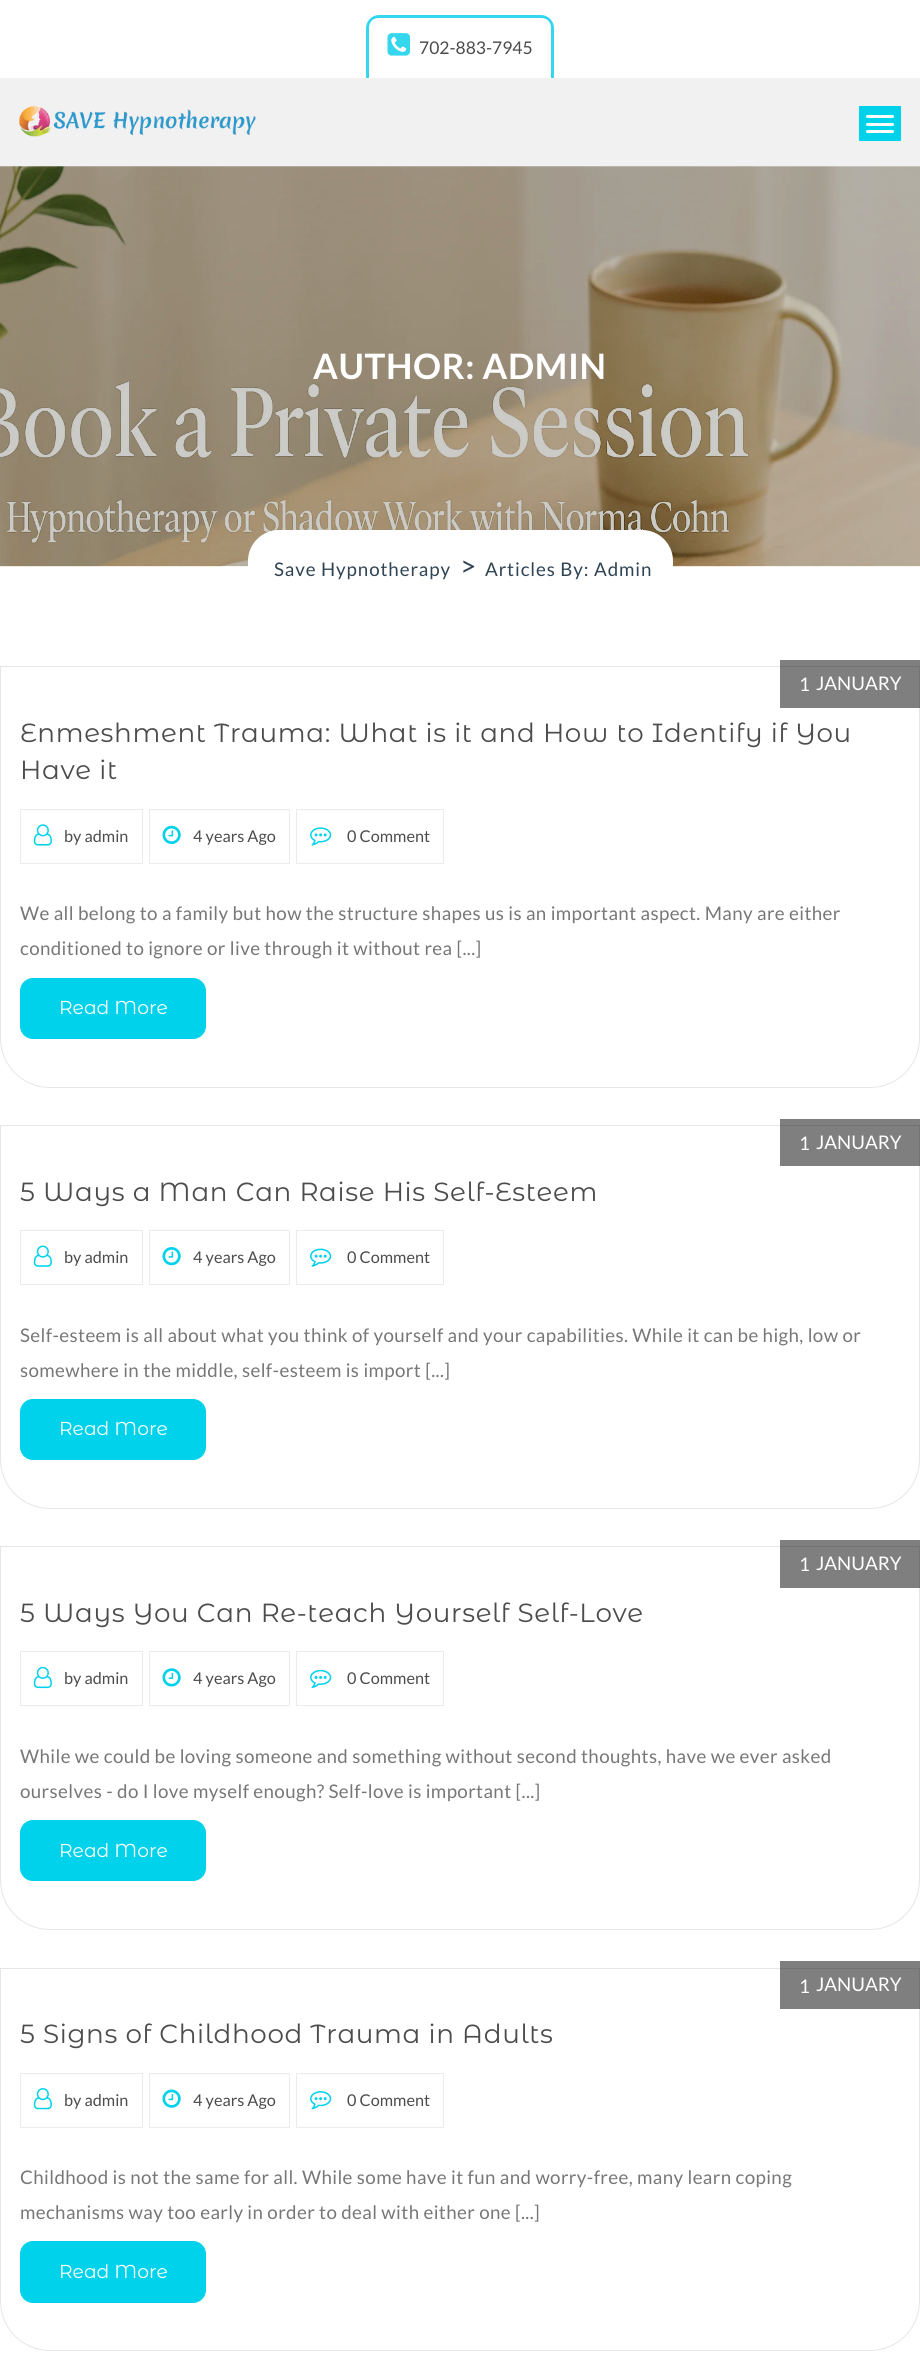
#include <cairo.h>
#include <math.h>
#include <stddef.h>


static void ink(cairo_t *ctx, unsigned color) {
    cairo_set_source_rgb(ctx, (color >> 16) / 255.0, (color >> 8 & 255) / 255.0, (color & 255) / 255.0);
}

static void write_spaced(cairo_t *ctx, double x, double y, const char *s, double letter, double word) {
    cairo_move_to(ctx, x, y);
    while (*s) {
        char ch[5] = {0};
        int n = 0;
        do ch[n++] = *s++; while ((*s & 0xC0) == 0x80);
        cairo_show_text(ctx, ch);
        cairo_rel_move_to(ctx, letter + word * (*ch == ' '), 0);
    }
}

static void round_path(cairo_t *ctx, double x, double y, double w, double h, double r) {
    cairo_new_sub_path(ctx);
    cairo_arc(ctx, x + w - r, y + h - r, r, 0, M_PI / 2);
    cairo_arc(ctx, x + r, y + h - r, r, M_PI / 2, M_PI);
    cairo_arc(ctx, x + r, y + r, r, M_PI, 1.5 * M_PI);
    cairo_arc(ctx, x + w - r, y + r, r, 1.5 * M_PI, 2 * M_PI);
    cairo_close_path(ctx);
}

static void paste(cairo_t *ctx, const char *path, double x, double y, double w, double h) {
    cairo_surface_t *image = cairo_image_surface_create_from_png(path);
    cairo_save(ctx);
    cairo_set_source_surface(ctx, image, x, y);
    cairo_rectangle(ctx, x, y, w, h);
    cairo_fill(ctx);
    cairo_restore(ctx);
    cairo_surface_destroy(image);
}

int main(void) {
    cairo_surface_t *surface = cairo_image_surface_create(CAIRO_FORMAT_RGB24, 920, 2355);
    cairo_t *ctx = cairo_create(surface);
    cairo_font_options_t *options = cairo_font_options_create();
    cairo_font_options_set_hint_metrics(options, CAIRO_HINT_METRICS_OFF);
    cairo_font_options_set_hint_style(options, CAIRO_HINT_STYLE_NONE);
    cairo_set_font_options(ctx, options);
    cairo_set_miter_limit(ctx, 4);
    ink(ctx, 0xFFFFFF);
    cairo_paint(ctx);
    ink(ctx, 0x34D7ED);
    cairo_set_fill_rule(ctx, CAIRO_FILL_RULE_EVEN_ODD);
    cairo_new_path(ctx);
    cairo_move_to(ctx, 379, 15);
    cairo_line_to(ctx, 541, 15);
    cairo_curve_to(ctx, 548, 15, 554, 21, 554, 28);
    cairo_line_to(ctx, 554, 78);
    cairo_line_to(ctx, 366, 78);
    cairo_line_to(ctx, 366, 28);
    cairo_curve_to(ctx, 366, 21, 372, 15, 379, 15);
    cairo_close_path(ctx);
    cairo_move_to(ctx, 379, 18);
    cairo_line_to(ctx, 541, 18);
    cairo_curve_to(ctx, 547, 18, 551, 22, 551, 28);
    cairo_line_to(ctx, 551, 78);
    cairo_line_to(ctx, 369, 78);
    cairo_line_to(ctx, 369, 28);
    cairo_curve_to(ctx, 369, 22, 373, 18, 379, 18);
    cairo_close_path(ctx);
    cairo_fill(ctx);
    paste(ctx, "media/1.png", 387, 33, 23, 23);
    cairo_select_font_face(ctx, "Lato", CAIRO_FONT_SLANT_NORMAL, CAIRO_FONT_WEIGHT_NORMAL);
    cairo_set_font_size(ctx, 17.5);
    ink(ctx, 0x4C4C4C);
    cairo_move_to(ctx, 419, 54);
    cairo_show_text(ctx, "702-883-7945");
    ink(ctx, 0xF1F1F1);
    cairo_rectangle(ctx, 0, 78, 920, 88);
    cairo_fill(ctx);
    paste(ctx, "media/2.png", 19, 106, 237, 31);
    ink(ctx, 0x00D2EB);
    cairo_rectangle(ctx, 859, 106, 42, 35);
    cairo_fill(ctx);
    ink(ctx, 0xFFFFFF);
    round_path(ctx, 866, 115, 28, 3, 1.5);
    cairo_fill(ctx);
    round_path(ctx, 866, 123, 28, 3, 1.5);
    cairo_fill(ctx);
    round_path(ctx, 866, 130, 28, 3, 1.5);
    cairo_fill(ctx);
    paste(ctx, "media/3.png", 0, 166, 920, 401);
    cairo_select_font_face(ctx, "Lato", CAIRO_FONT_SLANT_NORMAL, CAIRO_FONT_WEIGHT_BOLD);
    cairo_set_font_size(ctx, 35);
    write_spaced(ctx, 313, 379, "AUTHOR: ADMIN", 0.62, 0);
    round_path(ctx, 248, 530, 425, 74, 31);
    cairo_fill(ctx);
    cairo_select_font_face(ctx, "Lato", CAIRO_FONT_SLANT_NORMAL, CAIRO_FONT_WEIGHT_NORMAL);
    cairo_set_font_size(ctx, 18.75);
    ink(ctx, 0x304454);
    write_spaced(ctx, 274, 576, "Save Hypnotherapy", 0.9, 0);
    cairo_set_font_size(ctx, 28);
    cairo_move_to(ctx, 460, 576);
    cairo_show_text(ctx, ">");
    cairo_set_font_size(ctx, 18.75);
    write_spaced(ctx, 485, 576, "Articles By: Admin", 0.9, 0);
    cairo_new_path(ctx);
    cairo_move_to(ctx, 0.5, 666.5);
    cairo_line_to(ctx, 919.5, 666.5);
    cairo_line_to(ctx, 919.5, 1038);
    cairo_curve_to(ctx, 919.5, 1065.5, 897.5, 1087.5, 870, 1087.5);
    cairo_line_to(ctx, 50, 1087.5);
    cairo_curve_to(ctx, 22.5, 1087.5, 0.5, 1065.5, 0.5, 1038);
    cairo_close_path(ctx);
    ink(ctx, 0xE6E6E6);
    cairo_set_line_width(ctx, 1);
    cairo_stroke(ctx);
    cairo_set_source_rgba(ctx, 0, 0, 0, 0.5);
    cairo_rectangle(ctx, 780, 660, 140, 48);
    cairo_fill(ctx);
    ink(ctx, 0xFFFFFF);
    cairo_move_to(ctx, 799, 691);
    cairo_show_text(ctx, "1");
    cairo_move_to(ctx, 816, 690);
    cairo_show_text(ctx, "JANUARY");
    cairo_select_font_face(ctx, "Montserrat Alternates", CAIRO_FONT_SLANT_NORMAL, CAIRO_FONT_WEIGHT_NORMAL);
    cairo_set_font_size(ctx, 26.25);
    ink(ctx, 0x4C4C4C);
    write_spaced(ctx, 20, 742, "Enmeshment Trauma: What is it and How to Identify if You", 0.62, 0);
    write_spaced(ctx, 20, 779, "Have it", 0.62, 0);
    cairo_rectangle(ctx, 20.5, 809.5, 122, 54);
    ink(ctx, 0xEBEBEB);
    cairo_stroke(ctx);
    paste(ctx, "media/4.png", 33, 824, 19, 22);
    cairo_select_font_face(ctx, "Lato", CAIRO_FONT_SLANT_NORMAL, CAIRO_FONT_WEIGHT_NORMAL);
    cairo_set_font_size(ctx, 16.25);
    ink(ctx, 0x4C4C4C);
    cairo_move_to(ctx, 64, 842);
    cairo_show_text(ctx, "by admin");
    cairo_rectangle(ctx, 149.5, 809.5, 140, 54);
    ink(ctx, 0xEBEBEB);
    cairo_stroke(ctx);
    paste(ctx, "media/5.png", 162, 825, 19, 19);
    ink(ctx, 0x4C4C4C);
    cairo_move_to(ctx, 193, 842);
    cairo_show_text(ctx, "4 years Ago");
    cairo_rectangle(ctx, 296.5, 809.5, 147, 54);
    ink(ctx, 0xEBEBEB);
    cairo_stroke(ctx);
    paste(ctx, "media/6.png", 310, 827, 22, 19);
    ink(ctx, 0x4C4C4C);
    cairo_move_to(ctx, 347, 842);
    cairo_show_text(ctx, "0 Comment");
    cairo_set_font_size(ctx, 18.75);
    ink(ctx, 0x777777);
    write_spaced(ctx, 20, 920, "We all belong to a family but how the structure shapes us is an important aspect. Many are either", 0.38, 0);
    write_spaced(ctx, 20, 955, "conditioned to ignore or live through it without rea [...]", 0.38, 0);
    ink(ctx, 0x00D2EB);
    round_path(ctx, 20.5, 978.5, 185, 60, 12.5);
    cairo_fill_preserve(ctx);
    cairo_stroke(ctx);
    cairo_select_font_face(ctx, "Montserrat Alternates", CAIRO_FONT_SLANT_NORMAL, CAIRO_FONT_WEIGHT_NORMAL);
    ink(ctx, 0xFFFFFF);
    cairo_move_to(ctx, 59, 1014);
    cairo_show_text(ctx, "Read More");
    cairo_new_path(ctx);
    cairo_move_to(ctx, 0.5, 1125.5);
    cairo_line_to(ctx, 919.5, 1125.5);
    cairo_line_to(ctx, 919.5, 1459);
    cairo_curve_to(ctx, 919.5, 1486.5, 897.5, 1508.5, 870, 1508.5);
    cairo_line_to(ctx, 50, 1508.5);
    cairo_curve_to(ctx, 22.5, 1508.5, 0.5, 1486.5, 0.5, 1459);
    cairo_close_path(ctx);
    ink(ctx, 0xE6E6E6);
    cairo_stroke(ctx);
    cairo_set_source_rgba(ctx, 0, 0, 0, 0.5);
    cairo_rectangle(ctx, 780, 1119, 140, 47);
    cairo_fill(ctx);
    cairo_select_font_face(ctx, "Lato", CAIRO_FONT_SLANT_NORMAL, CAIRO_FONT_WEIGHT_NORMAL);
    ink(ctx, 0xFFFFFF);
    cairo_move_to(ctx, 799, 1150);
    cairo_show_text(ctx, "1");
    cairo_move_to(ctx, 816, 1149);
    cairo_show_text(ctx, "JANUARY");
    cairo_select_font_face(ctx, "Montserrat Alternates", CAIRO_FONT_SLANT_NORMAL, CAIRO_FONT_WEIGHT_NORMAL);
    cairo_set_font_size(ctx, 26.25);
    ink(ctx, 0x4C4C4C);
    write_spaced(ctx, 20, 1201, "5 Ways a Man Can Raise His Self-Esteem", 0.62, 0);
    cairo_rectangle(ctx, 20.5, 1230.5, 122, 54);
    ink(ctx, 0xEBEBEB);
    cairo_stroke(ctx);
    paste(ctx, "media/7.png", 33, 1245, 19, 22);
    cairo_select_font_face(ctx, "Lato", CAIRO_FONT_SLANT_NORMAL, CAIRO_FONT_WEIGHT_NORMAL);
    cairo_set_font_size(ctx, 16.25);
    ink(ctx, 0x4C4C4C);
    cairo_move_to(ctx, 64, 1263);
    cairo_show_text(ctx, "by admin");
    cairo_rectangle(ctx, 149.5, 1230.5, 140, 54);
    ink(ctx, 0xEBEBEB);
    cairo_stroke(ctx);
    paste(ctx, "media/8.png", 162, 1247, 19, 19);
    ink(ctx, 0x4C4C4C);
    cairo_move_to(ctx, 193, 1263);
    cairo_show_text(ctx, "4 years Ago");
    cairo_rectangle(ctx, 296.5, 1230.5, 147, 54);
    ink(ctx, 0xEBEBEB);
    cairo_stroke(ctx);
    paste(ctx, "media/9.png", 310, 1248, 22, 19);
    ink(ctx, 0x4C4C4C);
    cairo_move_to(ctx, 347, 1263);
    cairo_show_text(ctx, "0 Comment");
    cairo_set_font_size(ctx, 18.75);
    ink(ctx, 0x777777);
    write_spaced(ctx, 20, 1342, "Self-esteem is all about what you think of yourself and your capabilities. While it can be high, low or", 0.38, 0);
    write_spaced(ctx, 20, 1377, "somewhere in the middle, self-esteem is import [...]", 0.38, 0);
    ink(ctx, 0x00D2EB);
    round_path(ctx, 20.5, 1399.5, 185, 60, 12.5);
    cairo_fill_preserve(ctx);
    cairo_stroke(ctx);
    cairo_select_font_face(ctx, "Montserrat Alternates", CAIRO_FONT_SLANT_NORMAL, CAIRO_FONT_WEIGHT_NORMAL);
    ink(ctx, 0xFFFFFF);
    cairo_move_to(ctx, 59, 1435);
    cairo_show_text(ctx, "Read More");
    cairo_new_path(ctx);
    cairo_move_to(ctx, 0.5, 1546.5);
    cairo_line_to(ctx, 919.5, 1546.5);
    cairo_line_to(ctx, 919.5, 1880);
    cairo_curve_to(ctx, 919.5, 1907.5, 897.5, 1929.5, 870, 1929.5);
    cairo_line_to(ctx, 50, 1929.5);
    cairo_curve_to(ctx, 22.5, 1929.5, 0.5, 1907.5, 0.5, 1880);
    cairo_close_path(ctx);
    ink(ctx, 0xE6E6E6);
    cairo_stroke(ctx);
    cairo_set_source_rgba(ctx, 0, 0, 0, 0.5);
    cairo_rectangle(ctx, 780, 1540, 140, 48);
    cairo_fill(ctx);
    cairo_select_font_face(ctx, "Lato", CAIRO_FONT_SLANT_NORMAL, CAIRO_FONT_WEIGHT_NORMAL);
    ink(ctx, 0xFFFFFF);
    cairo_move_to(ctx, 799, 1571);
    cairo_show_text(ctx, "1");
    cairo_move_to(ctx, 816, 1570);
    cairo_show_text(ctx, "JANUARY");
    cairo_select_font_face(ctx, "Montserrat Alternates", CAIRO_FONT_SLANT_NORMAL, CAIRO_FONT_WEIGHT_NORMAL);
    cairo_set_font_size(ctx, 26.25);
    ink(ctx, 0x4C4C4C);
    write_spaced(ctx, 20, 1622, "5 Ways You Can Re-teach Yourself Self-Love", 0.62, 0);
    cairo_rectangle(ctx, 20.5, 1651.5, 122, 54);
    ink(ctx, 0xEBEBEB);
    cairo_stroke(ctx);
    paste(ctx, "media/10.png", 33, 1666, 19, 23);
    cairo_select_font_face(ctx, "Lato", CAIRO_FONT_SLANT_NORMAL, CAIRO_FONT_WEIGHT_NORMAL);
    cairo_set_font_size(ctx, 16.25);
    ink(ctx, 0x4C4C4C);
    cairo_move_to(ctx, 64, 1684);
    cairo_show_text(ctx, "by admin");
    cairo_rectangle(ctx, 149.5, 1651.5, 140, 54);
    ink(ctx, 0xEBEBEB);
    cairo_stroke(ctx);
    paste(ctx, "media/11.png", 162, 1668, 19, 19);
    ink(ctx, 0x4C4C4C);
    cairo_move_to(ctx, 193, 1684);
    cairo_show_text(ctx, "4 years Ago");
    cairo_rectangle(ctx, 296.5, 1651.5, 147, 54);
    ink(ctx, 0xEBEBEB);
    cairo_stroke(ctx);
    paste(ctx, "media/12.png", 310, 1669, 22, 19);
    ink(ctx, 0x4C4C4C);
    cairo_move_to(ctx, 347, 1684);
    cairo_show_text(ctx, "0 Comment");
    cairo_set_font_size(ctx, 18.75);
    ink(ctx, 0x777777);
    write_spaced(ctx, 20, 1763, "While we could be loving someone and something without second thoughts, have we ever asked", 0.38, 0);
    write_spaced(ctx, 20, 1798, "ourselves - do I love myself enough? Self-love is important [...]", 0.38, 0);
    ink(ctx, 0x00D2EB);
    round_path(ctx, 20.5, 1820.5, 185, 60, 12.5);
    cairo_fill_preserve(ctx);
    cairo_stroke(ctx);
    cairo_select_font_face(ctx, "Montserrat Alternates", CAIRO_FONT_SLANT_NORMAL, CAIRO_FONT_WEIGHT_NORMAL);
    ink(ctx, 0xFFFFFF);
    cairo_move_to(ctx, 59, 1857);
    cairo_show_text(ctx, "Read More");
    cairo_new_path(ctx);
    cairo_move_to(ctx, 0.5, 1968.5);
    cairo_line_to(ctx, 919.5, 1968.5);
    cairo_line_to(ctx, 919.5, 2301);
    cairo_curve_to(ctx, 919.5, 2328.5, 897.5, 2350.5, 870, 2350.5);
    cairo_line_to(ctx, 50, 2350.5);
    cairo_curve_to(ctx, 22.5, 2350.5, 0.5, 2328.5, 0.5, 2301);
    cairo_close_path(ctx);
    ink(ctx, 0xE6E6E6);
    cairo_stroke(ctx);
    cairo_set_source_rgba(ctx, 0, 0, 0, 0.5);
    cairo_rectangle(ctx, 780, 1961, 140, 48);
    cairo_fill(ctx);
    cairo_select_font_face(ctx, "Lato", CAIRO_FONT_SLANT_NORMAL, CAIRO_FONT_WEIGHT_NORMAL);
    ink(ctx, 0xFFFFFF);
    cairo_move_to(ctx, 799, 1993);
    cairo_show_text(ctx, "1");
    cairo_move_to(ctx, 816, 1991);
    cairo_show_text(ctx, "JANUARY");
    cairo_select_font_face(ctx, "Montserrat Alternates", CAIRO_FONT_SLANT_NORMAL, CAIRO_FONT_WEIGHT_NORMAL);
    cairo_set_font_size(ctx, 26.25);
    ink(ctx, 0x4C4C4C);
    write_spaced(ctx, 20, 2043, "5 Signs of Childhood Trauma in Adults", 0.62, 0);
    cairo_rectangle(ctx, 20.5, 2073.5, 122, 54);
    ink(ctx, 0xEBEBEB);
    cairo_stroke(ctx);
    paste(ctx, "media/13.png", 33, 2088, 19, 22);
    cairo_select_font_face(ctx, "Lato", CAIRO_FONT_SLANT_NORMAL, CAIRO_FONT_WEIGHT_NORMAL);
    cairo_set_font_size(ctx, 16.25);
    ink(ctx, 0x4C4C4C);
    cairo_move_to(ctx, 64, 2106);
    cairo_show_text(ctx, "by admin");
    cairo_rectangle(ctx, 149.5, 2073.5, 140, 54);
    ink(ctx, 0xEBEBEB);
    cairo_stroke(ctx);
    paste(ctx, "media/14.png", 162, 2089, 19, 19);
    ink(ctx, 0x4C4C4C);
    cairo_move_to(ctx, 193, 2106);
    cairo_show_text(ctx, "4 years Ago");
    cairo_rectangle(ctx, 296.5, 2073.5, 147, 54);
    ink(ctx, 0xEBEBEB);
    cairo_stroke(ctx);
    paste(ctx, "media/15.png", 310, 2091, 22, 19);
    ink(ctx, 0x4C4C4C);
    cairo_move_to(ctx, 347, 2106);
    cairo_show_text(ctx, "0 Comment");
    cairo_set_font_size(ctx, 18.75);
    ink(ctx, 0x777777);
    write_spaced(ctx, 20, 2184, "Childhood is not the same for all. While some have it fun and worry-free, many learn coping", 0.38, 0);
    write_spaced(ctx, 20, 2219, "mechanisms way too early in order to deal with either one [...]", 0.38, 0);
    ink(ctx, 0x00D2EB);
    round_path(ctx, 20.5, 2241.5, 185, 61, 12.5);
    cairo_fill_preserve(ctx);
    cairo_stroke(ctx);
    cairo_select_font_face(ctx, "Montserrat Alternates", CAIRO_FONT_SLANT_NORMAL, CAIRO_FONT_WEIGHT_NORMAL);
    ink(ctx, 0xFFFFFF);
    cairo_move_to(ctx, 59, 2278);
    cairo_show_text(ctx, "Read More");
    cairo_surface_write_to_png(surface, "image.png");
    cairo_font_options_destroy(options);
    cairo_destroy(ctx);
    cairo_surface_destroy(surface);
    return 0;
}
